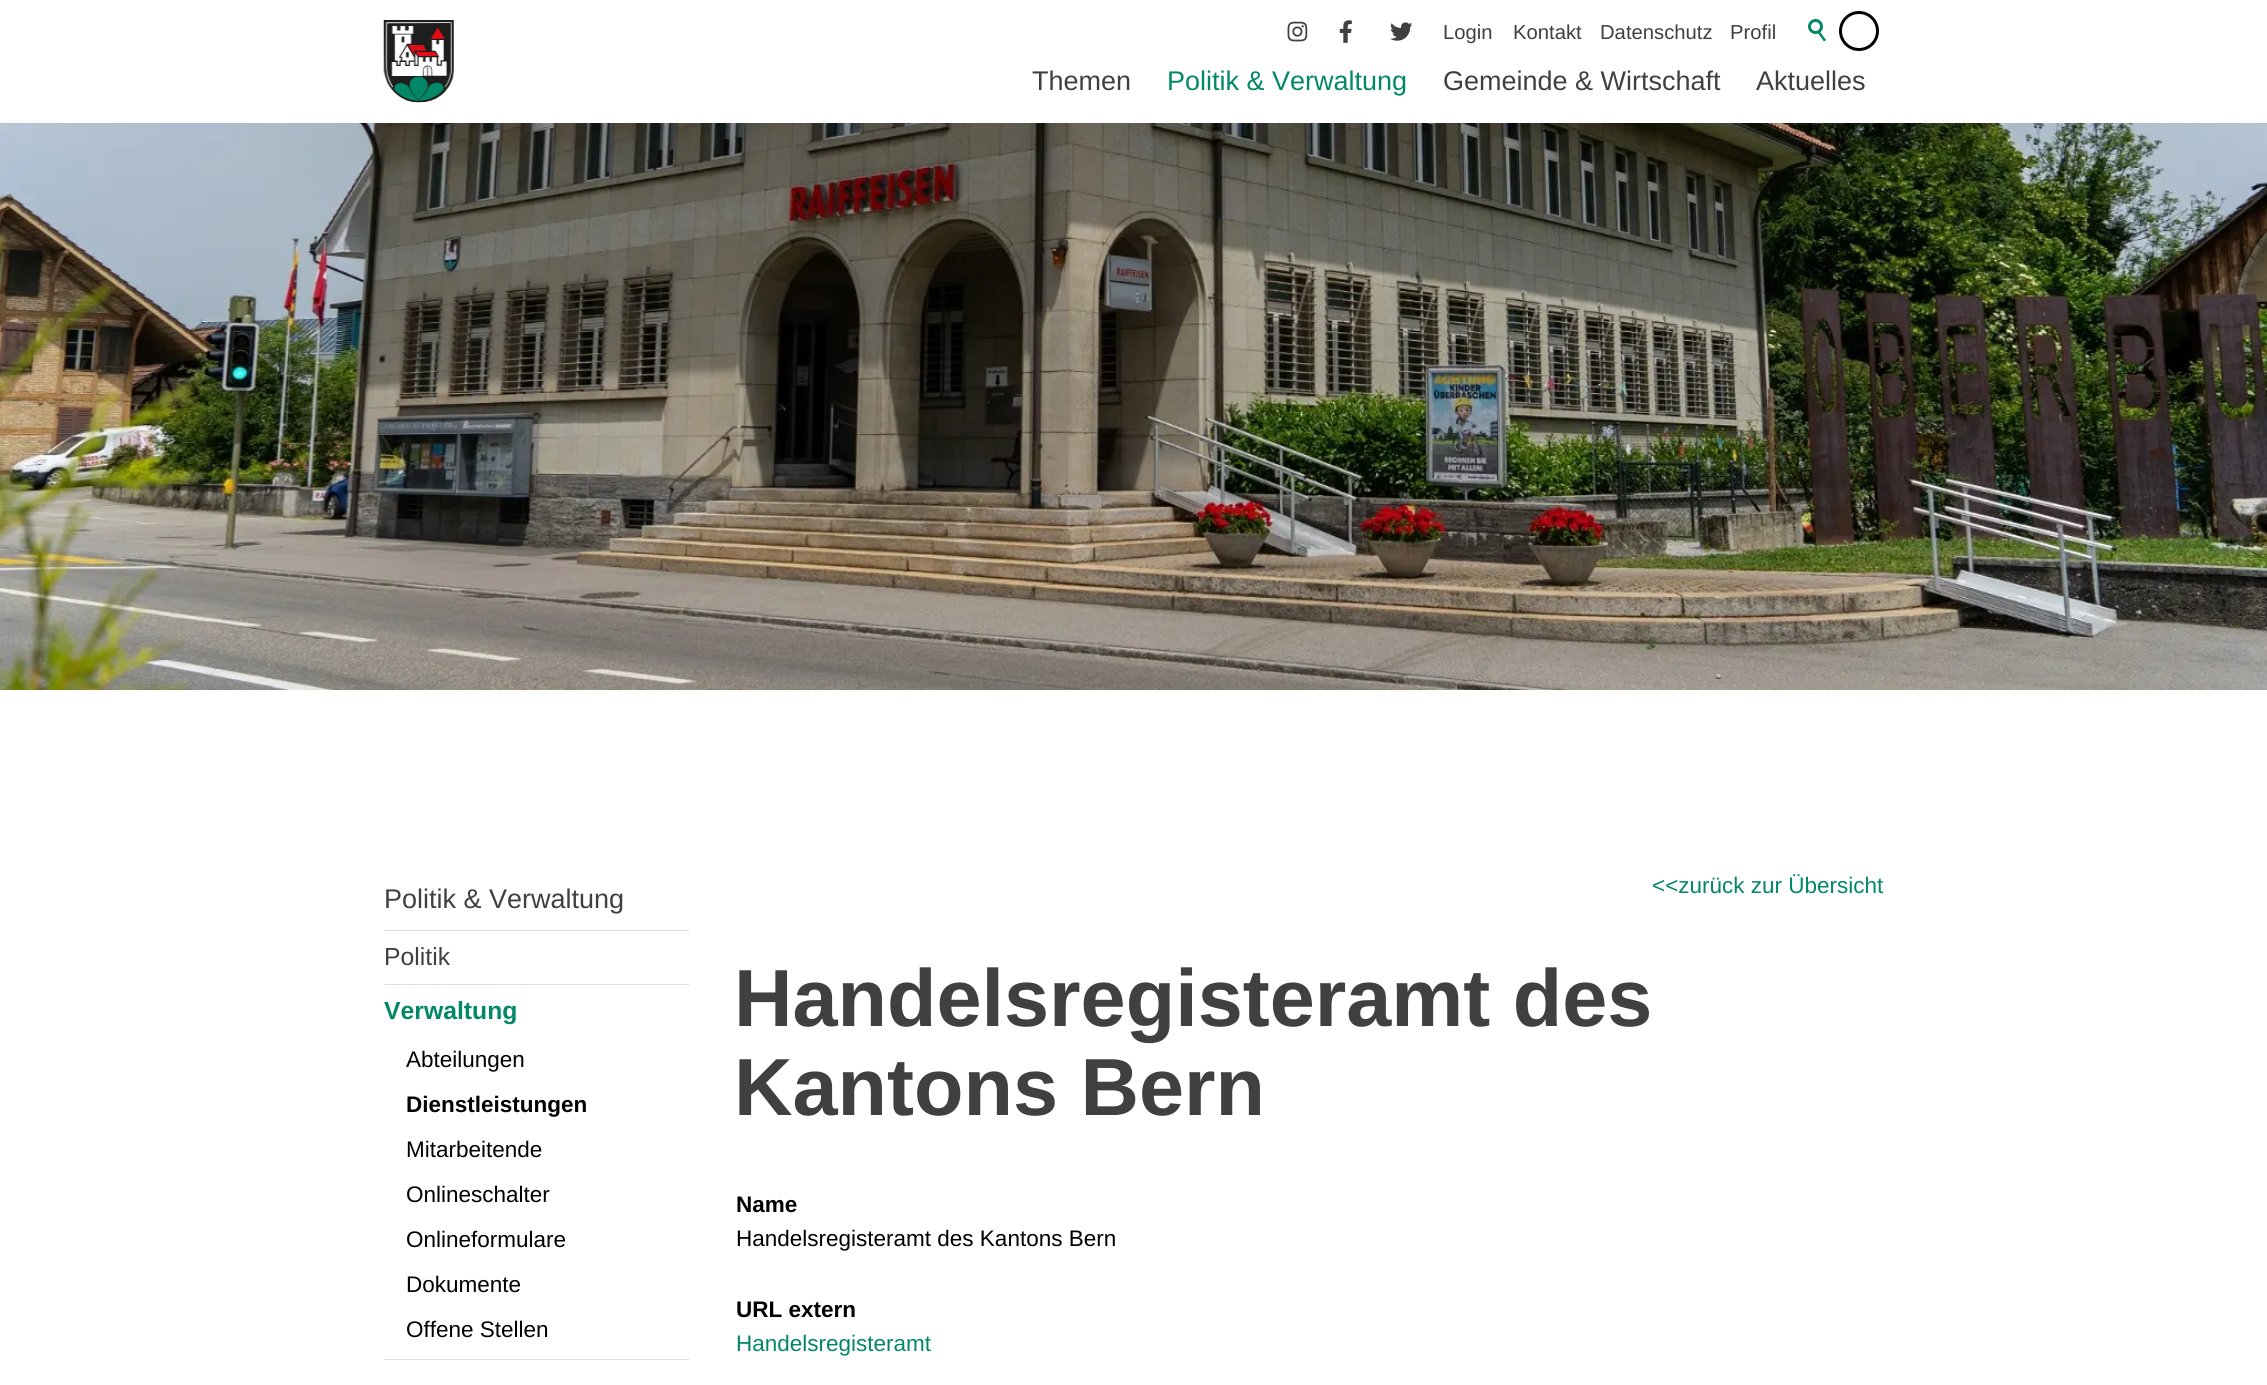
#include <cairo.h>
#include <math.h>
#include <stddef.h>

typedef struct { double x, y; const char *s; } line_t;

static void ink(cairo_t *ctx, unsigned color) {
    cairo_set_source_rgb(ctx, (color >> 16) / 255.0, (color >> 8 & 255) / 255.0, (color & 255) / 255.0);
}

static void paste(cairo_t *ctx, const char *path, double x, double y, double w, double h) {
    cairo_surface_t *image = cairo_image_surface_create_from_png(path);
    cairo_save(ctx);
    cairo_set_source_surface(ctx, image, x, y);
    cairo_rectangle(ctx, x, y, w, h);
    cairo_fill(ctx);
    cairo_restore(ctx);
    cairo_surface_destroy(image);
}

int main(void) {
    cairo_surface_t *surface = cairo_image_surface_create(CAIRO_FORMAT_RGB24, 2267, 1385);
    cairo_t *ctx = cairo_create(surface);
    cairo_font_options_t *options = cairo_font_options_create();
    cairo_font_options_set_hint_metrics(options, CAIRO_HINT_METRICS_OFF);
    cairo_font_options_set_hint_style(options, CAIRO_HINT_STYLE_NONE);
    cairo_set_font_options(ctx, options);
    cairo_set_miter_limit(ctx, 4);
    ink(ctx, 0xFFFFFF);
    cairo_paint(ctx);
    paste(ctx, "media/1.png", 1287, 21, 21, 21);
    paste(ctx, "media/2.png", 1339, 20, 13, 23);
    paste(ctx, "media/3.png", 1390, 22, 23, 19);
    cairo_select_font_face(ctx, "Liberation Sans", CAIRO_FONT_SLANT_NORMAL, CAIRO_FONT_WEIGHT_NORMAL);
    cairo_set_font_size(ctx, 20.25);
    ink(ctx, 0x404040);
    {
        static const line_t items[] = {
            {1443, 39, "Login"},
            {1513, 39, "Kontakt"},
            {1600, 39, "Datenschutz"},
            {1730, 39, "Profil"},
        };
        for (size_t i = 0; i < sizeof items / sizeof *items; i++) {
            cairo_move_to(ctx, items[i].x, items[i].y);
            cairo_show_text(ctx, items[i].s);
        }
    }
    cairo_new_path(ctx);
    cairo_arc(ctx, 1815.5, 26.5, 6, 0, 2 * M_PI);
    ink(ctx, 0x028868);
    cairo_set_line_width(ctx, 3);
    cairo_stroke(ctx);
    cairo_new_path(ctx);
    cairo_move_to(ctx, 1819.5, 31);
    cairo_line_to(ctx, 1826, 40);
    cairo_line_to(ctx, 1824, 41.5);
    cairo_line_to(ctx, 1817.5, 32.5);
    cairo_close_path(ctx);
    cairo_fill(ctx);
    cairo_arc(ctx, 1859, 31, 18.5, 0, 2 * M_PI);
    ink(ctx, 0x000000);
    cairo_stroke(ctx);
    paste(ctx, "media/4.png", 383, 20, 71, 83);
    cairo_set_font_size(ctx, 27);
    ink(ctx, 0x404040);
    cairo_move_to(ctx, 1032, 90);
    cairo_show_text(ctx, "Themen");
    ink(ctx, 0x028868);
    cairo_move_to(ctx, 1167, 90);
    cairo_show_text(ctx, "Politik & Verwaltung");
    ink(ctx, 0x404040);
    cairo_move_to(ctx, 1443, 90);
    cairo_show_text(ctx, "Gemeinde & Wirtschaft");
    cairo_move_to(ctx, 1756, 90);
    cairo_show_text(ctx, "Aktuelles");
    paste(ctx, "media/5.png", 0, 123, 2267, 567);
    cairo_move_to(ctx, 384, 908);
    cairo_show_text(ctx, "Politik & Verwaltung");
    ink(ctx, 0xDDDDDD);
    cairo_rectangle(ctx, 384, 930, 305, 1);
    cairo_fill(ctx);
    cairo_rectangle(ctx, 384, 984, 305, 1);
    cairo_fill(ctx);
    cairo_set_font_size(ctx, 24.75);
    ink(ctx, 0x404040);
    cairo_move_to(ctx, 384, 965);
    cairo_show_text(ctx, "Politik");
    ink(ctx, 0xDDDDDD);
    cairo_rectangle(ctx, 384, 1359, 305, 1);
    cairo_fill(ctx);
    cairo_select_font_face(ctx, "Liberation Sans", CAIRO_FONT_SLANT_NORMAL, CAIRO_FONT_WEIGHT_BOLD);
    ink(ctx, 0x028868);
    cairo_move_to(ctx, 384, 1019);
    cairo_show_text(ctx, "Verwaltung");
    cairo_select_font_face(ctx, "Liberation Sans", CAIRO_FONT_SLANT_NORMAL, CAIRO_FONT_WEIGHT_NORMAL);
    cairo_set_font_size(ctx, 22.5);
    ink(ctx, 0x000000);
    cairo_move_to(ctx, 406, 1067);
    cairo_show_text(ctx, "Abteilungen");
    cairo_select_font_face(ctx, "Liberation Sans", CAIRO_FONT_SLANT_NORMAL, CAIRO_FONT_WEIGHT_BOLD);
    cairo_move_to(ctx, 406, 1112);
    cairo_show_text(ctx, "Dienstleistungen");
    cairo_select_font_face(ctx, "Liberation Sans", CAIRO_FONT_SLANT_NORMAL, CAIRO_FONT_WEIGHT_NORMAL);
    {
        static const line_t items[] = {
            {406, 1157, "Mitarbeitende"},
            {406, 1202, "Onlineschalter"},
            {406, 1247, "Onlineformulare"},
            {406, 1292, "Dokumente"},
            {406, 1337, "Offene Stellen"},
        };
        for (size_t i = 0; i < sizeof items / sizeof *items; i++) {
            cairo_move_to(ctx, items[i].x, items[i].y);
            cairo_show_text(ctx, items[i].s);
        }
    }
    ink(ctx, 0x028868);
    cairo_move_to(ctx, 1652, 893);
    cairo_show_text(ctx, "<<zurück zur Übersicht");
    cairo_select_font_face(ctx, "Liberation Sans", CAIRO_FONT_SLANT_NORMAL, CAIRO_FONT_WEIGHT_BOLD);
    cairo_set_font_size(ctx, 81);
    ink(ctx, 0x404040);
    cairo_move_to(ctx, 734, 1026);
    cairo_show_text(ctx, "Handelsregisteramt des");
    cairo_move_to(ctx, 734, 1115);
    cairo_show_text(ctx, "Kantons Bern");
    cairo_set_font_size(ctx, 22.5);
    ink(ctx, 0x000000);
    cairo_move_to(ctx, 736, 1212);
    cairo_show_text(ctx, "Name");
    cairo_select_font_face(ctx, "Liberation Sans", CAIRO_FONT_SLANT_NORMAL, CAIRO_FONT_WEIGHT_NORMAL);
    cairo_move_to(ctx, 736, 1246);
    cairo_show_text(ctx, "Handelsregisteramt des Kantons Bern");
    cairo_select_font_face(ctx, "Liberation Sans", CAIRO_FONT_SLANT_NORMAL, CAIRO_FONT_WEIGHT_BOLD);
    cairo_move_to(ctx, 736, 1317);
    cairo_show_text(ctx, "URL extern");
    cairo_select_font_face(ctx, "Liberation Sans", CAIRO_FONT_SLANT_NORMAL, CAIRO_FONT_WEIGHT_NORMAL);
    ink(ctx, 0x028868);
    cairo_move_to(ctx, 736, 1351);
    cairo_show_text(ctx, "Handelsregisteramt");
    cairo_surface_write_to_png(surface, "image.png");
    cairo_font_options_destroy(options);
    cairo_destroy(ctx);
    cairo_surface_destroy(surface);
    return 0;
}
